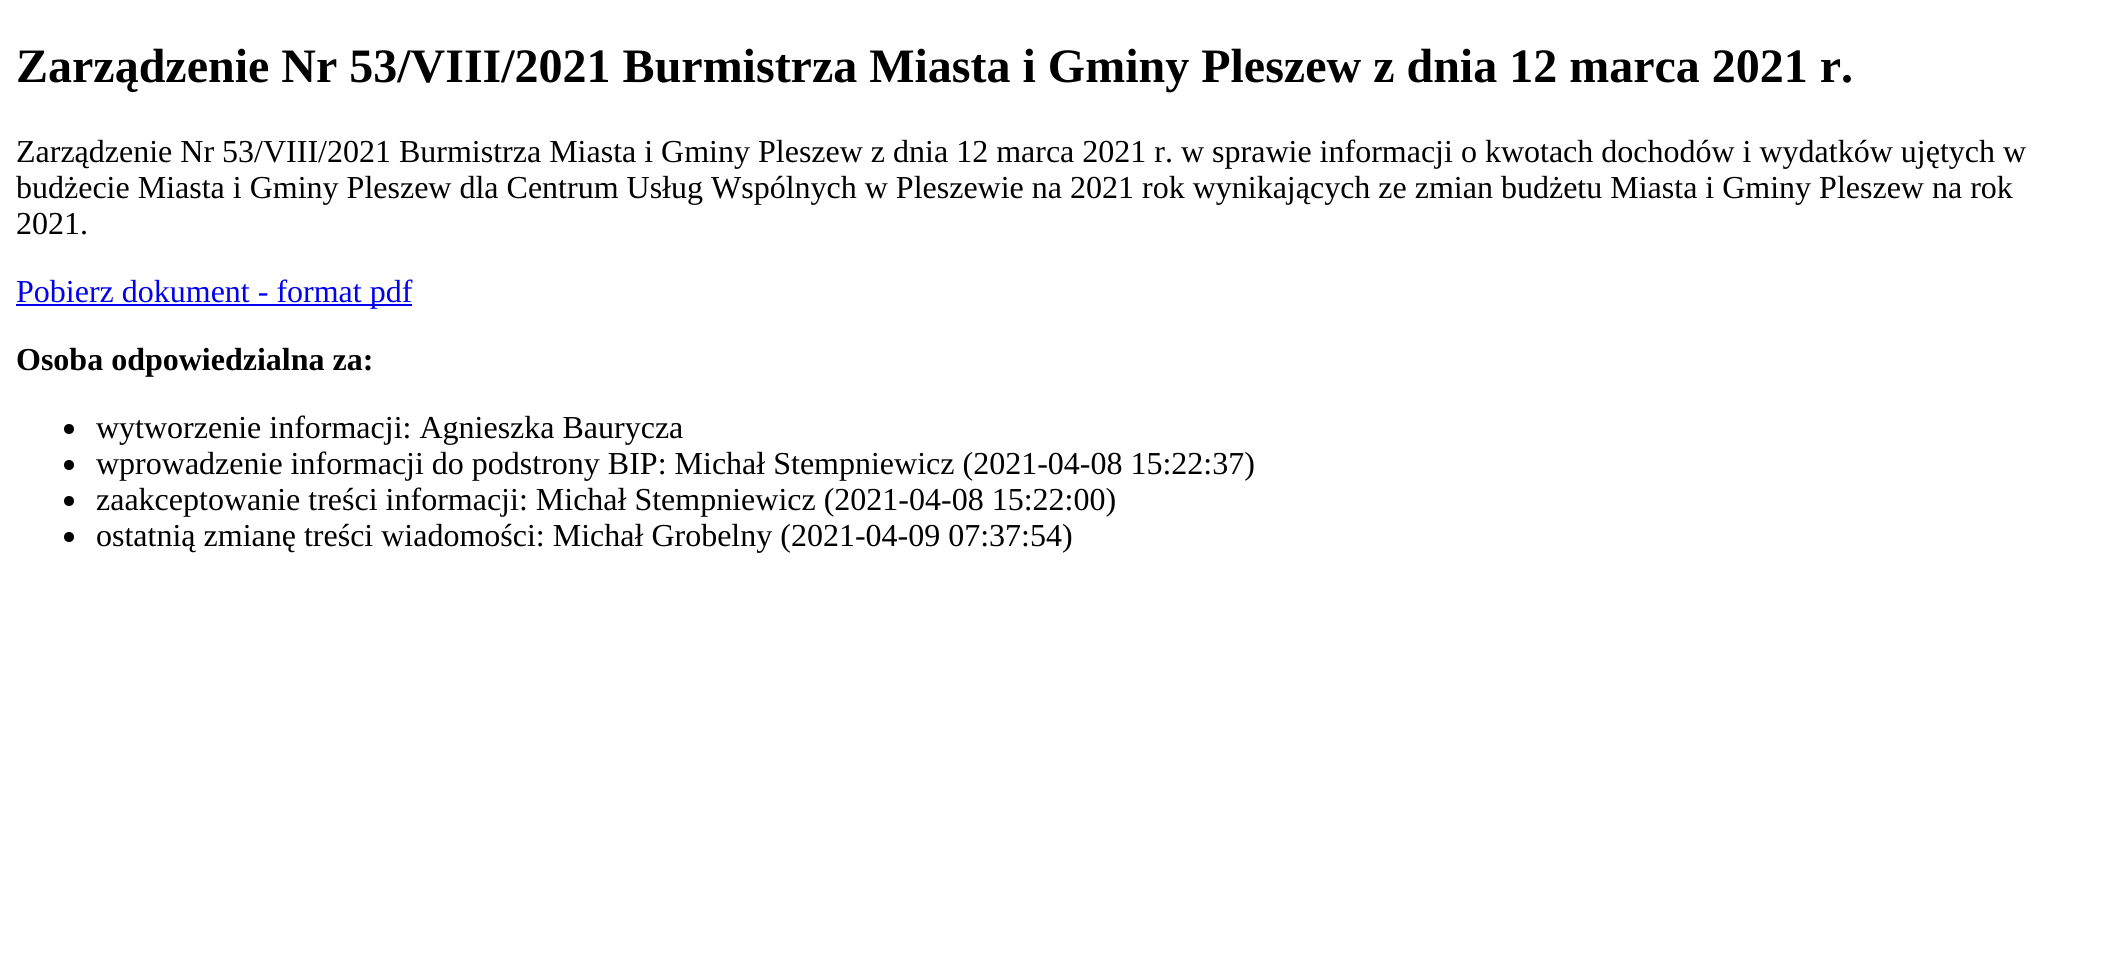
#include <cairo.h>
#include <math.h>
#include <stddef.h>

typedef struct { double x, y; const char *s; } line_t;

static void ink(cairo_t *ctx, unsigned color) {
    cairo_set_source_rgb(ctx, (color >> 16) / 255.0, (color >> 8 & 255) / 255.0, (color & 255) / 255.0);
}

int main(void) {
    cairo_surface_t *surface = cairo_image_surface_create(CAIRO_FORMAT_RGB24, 2105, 970);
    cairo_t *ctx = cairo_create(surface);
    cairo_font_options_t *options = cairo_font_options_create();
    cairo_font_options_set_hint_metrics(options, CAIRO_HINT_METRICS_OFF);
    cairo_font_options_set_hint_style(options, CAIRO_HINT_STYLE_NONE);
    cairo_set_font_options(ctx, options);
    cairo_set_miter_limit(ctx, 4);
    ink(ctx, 0xFFFFFF);
    cairo_paint(ctx);
    cairo_select_font_face(ctx, "Liberation Serif", CAIRO_FONT_SLANT_NORMAL, CAIRO_FONT_WEIGHT_BOLD);
    cairo_set_font_size(ctx, 48);
    ink(ctx, 0x000000);
    cairo_move_to(ctx, 16, 82);
    cairo_show_text(ctx, "Zarządzenie Nr 53/VIII/2021 Burmistrza Miasta i Gminy Pleszew z dnia 12 marca 2021 r.");
    cairo_select_font_face(ctx, "Liberation Serif", CAIRO_FONT_SLANT_NORMAL, CAIRO_FONT_WEIGHT_NORMAL);
    cairo_set_font_size(ctx, 32);
    {
        static const line_t items[] = {
            {16, 162, "Zarządzenie Nr 53/VIII/2021 Burmistrza Miasta i Gminy Pleszew z dnia 12 marca 2021 r. w sprawie informacji o kwotach dochodów i wydatków ujętych w"},
            {16, 198, "budżecie Miasta i Gminy Pleszew dla Centrum Usług Wspólnych w Pleszewie na 2021 rok wynikających ze zmian budżetu Miasta i Gminy Pleszew na rok"},
            {16, 234, "2021."},
        };
        for (size_t i = 0; i < sizeof items / sizeof *items; i++) {
            cairo_move_to(ctx, items[i].x, items[i].y);
            cairo_show_text(ctx, items[i].s);
        }
    }
    ink(ctx, 0x0000EE);
    cairo_rectangle(ctx, 16, 304, 396, 2);
    cairo_fill(ctx);
    cairo_move_to(ctx, 16, 302);
    cairo_show_text(ctx, "Pobierz dokument - format pdf");
    cairo_select_font_face(ctx, "Liberation Serif", CAIRO_FONT_SLANT_NORMAL, CAIRO_FONT_WEIGHT_BOLD);
    ink(ctx, 0x000000);
    cairo_move_to(ctx, 16, 370);
    cairo_show_text(ctx, "Osoba odpowiedzialna za:");
    cairo_new_path(ctx);
    cairo_arc(ctx, 69, 429, 5, 0, 2 * M_PI);
    cairo_fill(ctx);
    cairo_select_font_face(ctx, "Liberation Serif", CAIRO_FONT_SLANT_NORMAL, CAIRO_FONT_WEIGHT_NORMAL);
    cairo_move_to(ctx, 96, 438);
    cairo_show_text(ctx, "wytworzenie informacji: Agnieszka Baurycza");
    cairo_new_path(ctx);
    cairo_arc(ctx, 69, 465, 5, 0, 2 * M_PI);
    cairo_fill(ctx);
    cairo_move_to(ctx, 96, 474);
    cairo_show_text(ctx, "wprowadzenie informacji do podstrony BIP: Michał Stempniewicz (2021-04-08 15:22:37)");
    cairo_new_path(ctx);
    cairo_arc(ctx, 69, 501, 5, 0, 2 * M_PI);
    cairo_fill(ctx);
    cairo_move_to(ctx, 96, 510);
    cairo_show_text(ctx, "zaakceptowanie treści informacji: Michał Stempniewicz (2021-04-08 15:22:00)");
    cairo_new_path(ctx);
    cairo_arc(ctx, 69, 537, 5, 0, 2 * M_PI);
    cairo_fill(ctx);
    cairo_move_to(ctx, 96, 546);
    cairo_show_text(ctx, "ostatnią zmianę treści wiadomości: Michał Grobelny (2021-04-09 07:37:54)");
    cairo_surface_write_to_png(surface, "image.png");
    cairo_font_options_destroy(options);
    cairo_destroy(ctx);
    cairo_surface_destroy(surface);
    return 0;
}
